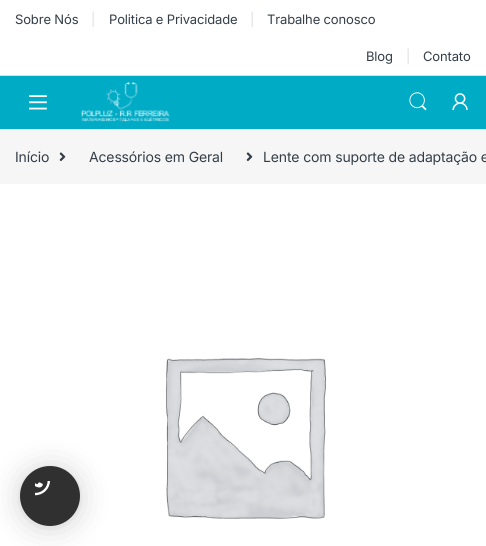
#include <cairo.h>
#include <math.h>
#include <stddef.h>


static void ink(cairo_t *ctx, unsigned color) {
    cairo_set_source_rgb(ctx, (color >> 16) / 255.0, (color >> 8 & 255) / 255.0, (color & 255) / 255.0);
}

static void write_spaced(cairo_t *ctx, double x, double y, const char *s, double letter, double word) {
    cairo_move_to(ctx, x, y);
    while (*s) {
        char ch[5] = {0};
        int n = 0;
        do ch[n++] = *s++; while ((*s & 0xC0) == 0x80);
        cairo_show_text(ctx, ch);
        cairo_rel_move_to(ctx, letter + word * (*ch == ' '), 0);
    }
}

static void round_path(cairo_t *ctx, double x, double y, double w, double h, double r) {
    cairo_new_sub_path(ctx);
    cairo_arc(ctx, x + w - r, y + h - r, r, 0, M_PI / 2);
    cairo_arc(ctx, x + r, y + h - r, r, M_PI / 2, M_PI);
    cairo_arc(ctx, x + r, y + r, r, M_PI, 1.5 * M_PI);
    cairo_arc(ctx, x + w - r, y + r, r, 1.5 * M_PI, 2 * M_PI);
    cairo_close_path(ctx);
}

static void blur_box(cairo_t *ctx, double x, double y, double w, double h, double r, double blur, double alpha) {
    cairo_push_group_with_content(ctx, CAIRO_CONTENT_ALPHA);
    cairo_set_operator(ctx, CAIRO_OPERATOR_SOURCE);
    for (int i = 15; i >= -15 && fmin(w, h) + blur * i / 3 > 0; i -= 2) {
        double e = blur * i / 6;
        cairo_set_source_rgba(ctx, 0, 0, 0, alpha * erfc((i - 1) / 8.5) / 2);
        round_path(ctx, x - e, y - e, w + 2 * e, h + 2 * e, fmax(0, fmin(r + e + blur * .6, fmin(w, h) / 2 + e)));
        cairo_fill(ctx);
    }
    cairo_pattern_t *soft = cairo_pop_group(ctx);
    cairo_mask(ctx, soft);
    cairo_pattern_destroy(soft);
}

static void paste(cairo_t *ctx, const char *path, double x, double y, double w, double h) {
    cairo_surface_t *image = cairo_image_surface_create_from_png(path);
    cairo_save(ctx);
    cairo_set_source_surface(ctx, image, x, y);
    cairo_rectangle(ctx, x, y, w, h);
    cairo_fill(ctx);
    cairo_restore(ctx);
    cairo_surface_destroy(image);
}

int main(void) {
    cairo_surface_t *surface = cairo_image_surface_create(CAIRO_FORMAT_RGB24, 486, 546);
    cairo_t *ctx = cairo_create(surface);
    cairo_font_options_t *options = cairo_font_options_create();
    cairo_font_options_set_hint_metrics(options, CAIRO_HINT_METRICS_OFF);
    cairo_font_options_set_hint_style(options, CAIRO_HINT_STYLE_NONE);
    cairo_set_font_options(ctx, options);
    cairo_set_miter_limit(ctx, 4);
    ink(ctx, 0xFFFFFF);
    cairo_paint(ctx);
    ink(ctx, 0xDDDDDD);
    cairo_rectangle(ctx, 0, 75, 486, 1);
    cairo_fill(ctx);
    cairo_select_font_face(ctx, "Inter", CAIRO_FONT_SLANT_NORMAL, CAIRO_FONT_WEIGHT_NORMAL);
    cairo_set_font_size(ctx, 13);
    ink(ctx, 0x333E48);
    write_spaced(ctx, 15, 24, "Sobre Nós", -0.15, 0);
    ink(ctx, 0xDDDDDD);
    write_spaced(ctx, 91, 24, "|", -0.15, 0);
    ink(ctx, 0x333E48);
    write_spaced(ctx, 109, 24, "Politica e Privacidade", -0.15, 0);
    ink(ctx, 0xDDDDDD);
    write_spaced(ctx, 250, 24, "|", -0.15, 0);
    ink(ctx, 0x333E48);
    write_spaced(ctx, 267, 24, "Trabalhe conosco", -0.15, 0);
    write_spaced(ctx, 366, 61, "Blog", -0.15, 0);
    ink(ctx, 0xDDDDDD);
    write_spaced(ctx, 406, 61, "|", -0.15, 0);
    ink(ctx, 0x333E48);
    write_spaced(ctx, 423, 61, "Contato", -0.15, 0);
    ink(ctx, 0x00ABC5);
    cairo_rectangle(ctx, 0, 76, 486, 53);
    cairo_fill(ctx);
    paste(ctx, "media/1.png", 29, 95, 18, 15);
    paste(ctx, "media/2.png", 81, 82, 89, 40);
    paste(ctx, "media/3.png", 409, 92, 18, 19);
    paste(ctx, "media/4.png", 452, 93, 16, 18);
    ink(ctx, 0xF7F6F6);
    cairo_rectangle(ctx, 0, 129, 486, 55);
    cairo_fill(ctx);
    cairo_set_font_size(ctx, 14);
    ink(ctx, 0x333E48);
    write_spaced(ctx, 15, 162, "Início", -0.15, 0);
    paste(ctx, "media/5.png", 59, 152, 7, 10);
    write_spaced(ctx, 89, 162, "Acessórios em Geral", -0.15, 0);
    paste(ctx, "media/5.png", 246, 152, 7, 10);
    write_spaced(ctx, 263, 162, "Lente com suporte de adaptação e", -0.15, 0);
    paste(ctx, "media/6.png", 165, 358, 161, 162);
    ink(ctx, 0x000000);
    blur_box(ctx, 20, 468, 60, 60, 30, 16, 0.16);
    blur_box(ctx, 20, 467, 60, 60, 30, 3, 0.06);
    ink(ctx, 0x303030);
    cairo_arc(ctx, 50, 496, 30, 0, 2 * M_PI);
    cairo_fill(ctx);
    paste(ctx, "media/7.png", 35, 481, 15, 15);
    cairo_surface_write_to_png(surface, "image.png");
    cairo_font_options_destroy(options);
    cairo_destroy(ctx);
    cairo_surface_destroy(surface);
    return 0;
}
